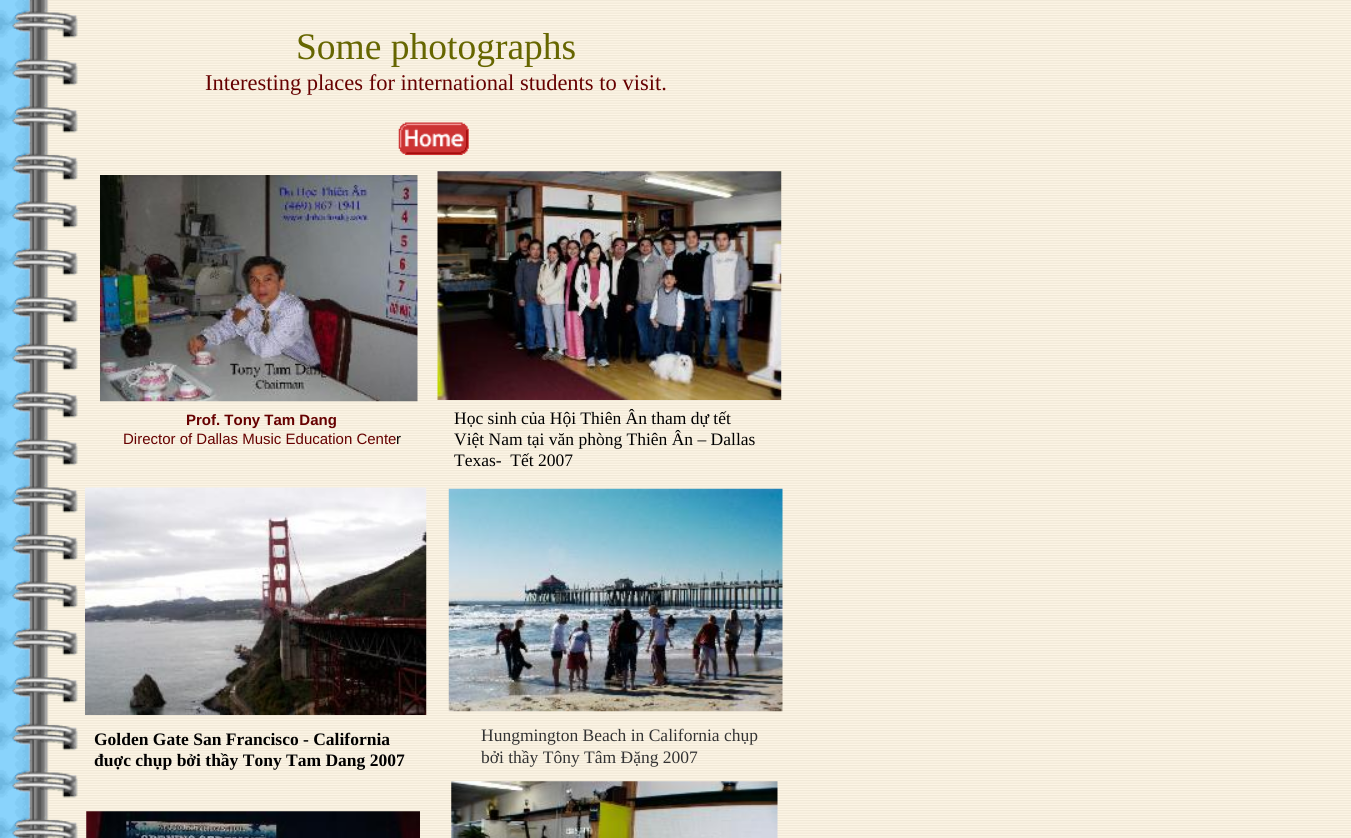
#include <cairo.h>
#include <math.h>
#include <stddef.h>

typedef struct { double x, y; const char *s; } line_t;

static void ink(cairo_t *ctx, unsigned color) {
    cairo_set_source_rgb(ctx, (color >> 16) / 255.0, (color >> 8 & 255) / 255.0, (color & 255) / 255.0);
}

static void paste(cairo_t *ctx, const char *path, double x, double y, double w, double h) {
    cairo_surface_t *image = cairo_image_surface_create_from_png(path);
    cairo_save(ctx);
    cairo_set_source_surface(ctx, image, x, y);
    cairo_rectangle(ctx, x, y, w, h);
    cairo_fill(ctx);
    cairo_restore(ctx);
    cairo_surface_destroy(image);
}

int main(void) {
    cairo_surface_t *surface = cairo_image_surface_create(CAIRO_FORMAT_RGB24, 1351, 838);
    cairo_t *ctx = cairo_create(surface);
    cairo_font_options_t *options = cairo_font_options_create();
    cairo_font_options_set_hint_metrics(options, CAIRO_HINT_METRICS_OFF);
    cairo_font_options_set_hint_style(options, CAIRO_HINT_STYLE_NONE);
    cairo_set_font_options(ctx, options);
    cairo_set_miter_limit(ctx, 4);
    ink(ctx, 0xFFFFFF);
    cairo_paint(ctx);
    paste(ctx, "media/1.png", 0, 0, 1351, 838);
    cairo_select_font_face(ctx, "Liberation Serif", CAIRO_FONT_SLANT_NORMAL, CAIRO_FONT_WEIGHT_NORMAL);
    cairo_set_font_size(ctx, 37.5);
    ink(ctx, 0x666600);
    cairo_move_to(ctx, 296, 59);
    cairo_show_text(ctx, "Some photographs");
    cairo_set_font_size(ctx, 22.5);
    ink(ctx, 0x660000);
    cairo_move_to(ctx, 205, 90);
    cairo_show_text(ctx, "Interesting places for international students to visit.");
    paste(ctx, "media/2.png", 398, 122, 71, 33);
    paste(ctx, "media/3.png", 100, 175, 318, 227);
    paste(ctx, "media/4.png", 437, 171, 345, 229);
    cairo_select_font_face(ctx, "Liberation Sans", CAIRO_FONT_SLANT_NORMAL, CAIRO_FONT_WEIGHT_BOLD);
    cairo_set_font_size(ctx, 15);
    cairo_move_to(ctx, 186, 425);
    cairo_show_text(ctx, "Prof. Tony Tam Dang");
    cairo_select_font_face(ctx, "Liberation Sans", CAIRO_FONT_SLANT_NORMAL, CAIRO_FONT_WEIGHT_NORMAL);
    cairo_move_to(ctx, 123, 444);
    cairo_show_text(ctx, "Director of Dallas Music Education Cente");
    ink(ctx, 0x000000);
    cairo_move_to(ctx, 396, 444);
    cairo_show_text(ctx, "r");
    cairo_select_font_face(ctx, "Liberation Serif", CAIRO_FONT_SLANT_NORMAL, CAIRO_FONT_WEIGHT_NORMAL);
    cairo_set_font_size(ctx, 17.5);
    {
        static const line_t items[] = {
            {454, 424, "Học sinh của Hội Thiên Ân tham dự tết"},
            {454, 445, "Việt Nam tại văn phòng Thiên Ân – Dallas"},
            {454, 466, "Texas-  Tết 2007"},
        };
        for (size_t i = 0; i < sizeof items / sizeof *items; i++) {
            cairo_move_to(ctx, items[i].x, items[i].y);
            cairo_show_text(ctx, items[i].s);
        }
    }
    paste(ctx, "media/5.png", 85, 487, 342, 228);
    paste(ctx, "media/6.png", 448, 488, 335, 224);
    cairo_select_font_face(ctx, "Liberation Serif", CAIRO_FONT_SLANT_NORMAL, CAIRO_FONT_WEIGHT_BOLD);
    cairo_move_to(ctx, 94, 745);
    cairo_show_text(ctx, "Golden Gate San Francisco - California");
    cairo_move_to(ctx, 94, 766);
    cairo_show_text(ctx, "đuợc chụp bởi thầy Tony Tam Dang 2007");
    cairo_select_font_face(ctx, "Liberation Serif", CAIRO_FONT_SLANT_NORMAL, CAIRO_FONT_WEIGHT_NORMAL);
    ink(ctx, 0x333333);
    cairo_move_to(ctx, 481, 741);
    cairo_show_text(ctx, "Hungmington Beach in California chụp");
    cairo_move_to(ctx, 481, 763);
    cairo_show_text(ctx, "bởi thầy Tôny Tâm Đặng 2007");
    paste(ctx, "media/7.png", 86, 811, 334, 27);
    paste(ctx, "media/8.png", 451, 781, 327, 57);
    cairo_surface_write_to_png(surface, "image.png");
    cairo_font_options_destroy(options);
    cairo_destroy(ctx);
    cairo_surface_destroy(surface);
    return 0;
}
